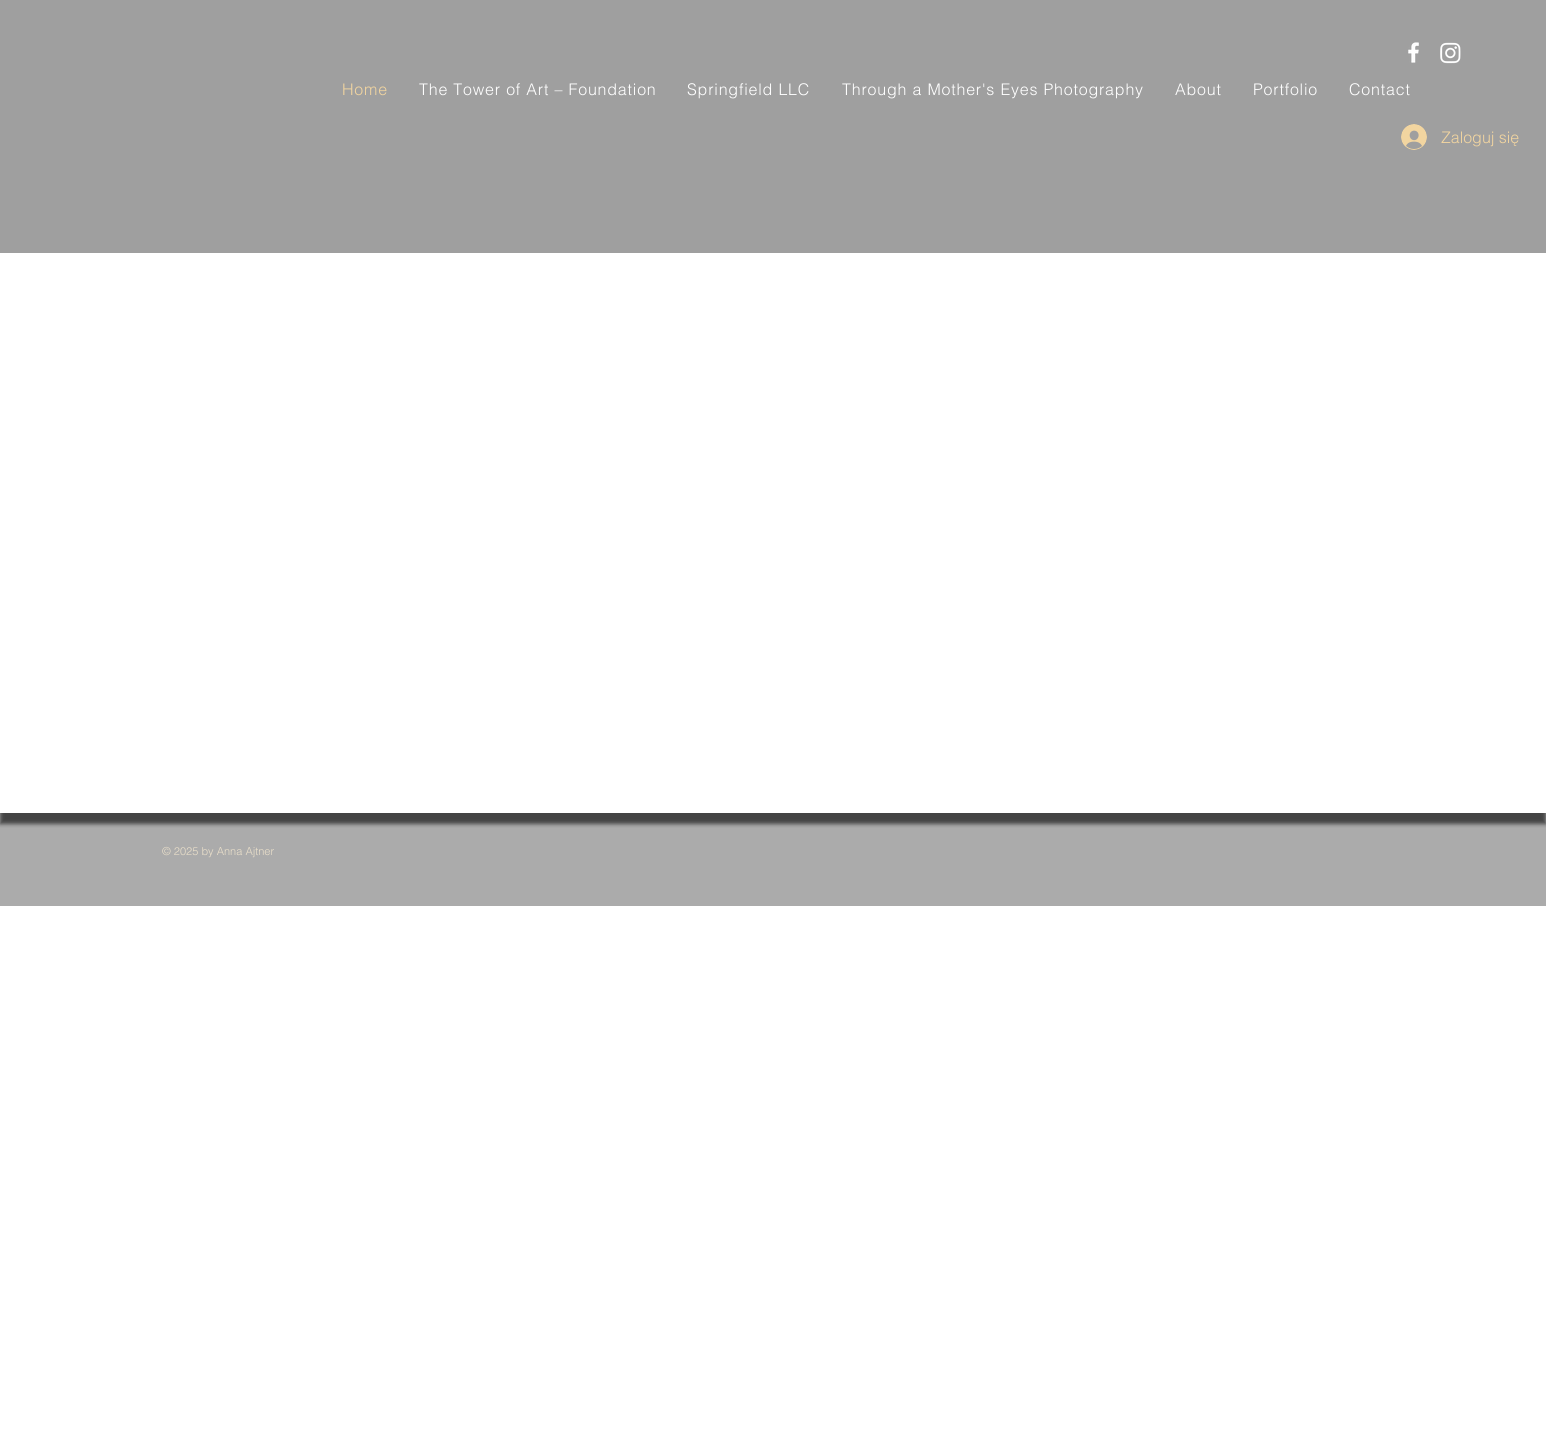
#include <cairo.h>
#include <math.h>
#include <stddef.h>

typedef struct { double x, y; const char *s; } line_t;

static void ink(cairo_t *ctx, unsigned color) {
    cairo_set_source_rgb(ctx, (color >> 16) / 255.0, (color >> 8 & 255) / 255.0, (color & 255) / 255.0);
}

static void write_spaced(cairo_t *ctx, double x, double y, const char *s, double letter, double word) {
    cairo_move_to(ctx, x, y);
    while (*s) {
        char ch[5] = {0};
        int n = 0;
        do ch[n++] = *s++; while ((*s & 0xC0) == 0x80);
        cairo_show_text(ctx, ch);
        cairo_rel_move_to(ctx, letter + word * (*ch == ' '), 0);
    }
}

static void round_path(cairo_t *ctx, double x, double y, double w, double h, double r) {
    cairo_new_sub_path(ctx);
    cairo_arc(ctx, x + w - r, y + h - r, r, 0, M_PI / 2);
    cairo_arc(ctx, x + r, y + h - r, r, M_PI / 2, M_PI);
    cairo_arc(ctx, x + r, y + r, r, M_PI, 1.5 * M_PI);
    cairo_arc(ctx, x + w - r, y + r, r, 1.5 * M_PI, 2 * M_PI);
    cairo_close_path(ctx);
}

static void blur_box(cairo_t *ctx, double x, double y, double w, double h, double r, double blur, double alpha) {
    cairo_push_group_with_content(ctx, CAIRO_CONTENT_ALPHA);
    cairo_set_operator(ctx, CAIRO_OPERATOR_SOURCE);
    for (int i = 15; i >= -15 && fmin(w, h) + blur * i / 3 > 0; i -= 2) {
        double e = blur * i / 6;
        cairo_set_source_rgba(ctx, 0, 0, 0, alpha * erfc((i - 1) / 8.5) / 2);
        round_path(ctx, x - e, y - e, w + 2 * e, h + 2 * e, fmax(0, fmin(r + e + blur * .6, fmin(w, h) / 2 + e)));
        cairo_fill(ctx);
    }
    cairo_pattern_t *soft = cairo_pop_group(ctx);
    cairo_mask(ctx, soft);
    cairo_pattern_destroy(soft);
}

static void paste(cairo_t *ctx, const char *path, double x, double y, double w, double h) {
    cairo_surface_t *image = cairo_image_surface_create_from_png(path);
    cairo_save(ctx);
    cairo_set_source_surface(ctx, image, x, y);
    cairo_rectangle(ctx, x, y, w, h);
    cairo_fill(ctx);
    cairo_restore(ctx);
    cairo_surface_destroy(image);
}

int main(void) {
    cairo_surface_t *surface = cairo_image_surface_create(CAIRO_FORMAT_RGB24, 1546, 1431);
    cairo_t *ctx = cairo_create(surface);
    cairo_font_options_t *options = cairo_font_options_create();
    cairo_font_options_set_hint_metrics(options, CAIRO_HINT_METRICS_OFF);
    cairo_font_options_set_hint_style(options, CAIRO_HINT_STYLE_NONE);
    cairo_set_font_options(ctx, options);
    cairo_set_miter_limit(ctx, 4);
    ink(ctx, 0xFFFFFF);
    cairo_paint(ctx);
    ink(ctx, 0xABABAB);
    cairo_rectangle(ctx, 0, 813, 1546, 93);
    cairo_fill(ctx);
    ink(ctx, 0x9F9F9F);
    cairo_rectangle(ctx, 0, 0, 1546, 253);
    cairo_fill(ctx);
    paste(ctx, "media/1.png", 1408, 42, 11, 21);
    paste(ctx, "media/2.png", 1440, 42, 21, 22);
    cairo_select_font_face(ctx, "helvetica Light", CAIRO_FONT_SLANT_NORMAL, CAIRO_FONT_WEIGHT_NORMAL);
    cairo_set_font_size(ctx, 16);
    ink(ctx, 0xF2D5A0);
    write_spaced(ctx, 342, 95, "Home", 0.8, 0);
    ink(ctx, 0xFFFFFF);
    {
        static const line_t items[] = {
            {419, 95, "The Tower of Art – Foundation"},
            {687, 95, "Springfield LLC"},
            {842, 95, "Through a Mother's Eyes Photography"},
            {1175, 95, "About"},
            {1253, 95, "Portfolio"},
            {1349, 95, "Contact"},
        };
        for (size_t i = 0; i < sizeof items / sizeof *items; i++) {
            write_spaced(ctx, items[i].x, items[i].y, items[i].s, 0.8, 0);
        }
    }
    paste(ctx, "media/3.png", 1401, 124, 26, 26);
    ink(ctx, 0xF2D5A0);
    cairo_move_to(ctx, 1441, 143);
    cairo_show_text(ctx, "Zaloguj się");
    cairo_save(ctx);
    cairo_rectangle(ctx, 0, 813, 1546, 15);
    cairo_clip(ctx);
    ink(ctx, 0x000000);
    blur_box(ctx, 0, 264, 1546, 560, 0, 2, 0.6);
    cairo_restore(ctx);
    cairo_set_font_size(ctx, 11);
    ink(ctx, 0xECE1CB);
    cairo_move_to(ctx, 162, 855);
    cairo_show_text(ctx, "© 2025 by Anna Ajtner");
    cairo_surface_write_to_png(surface, "image.png");
    cairo_font_options_destroy(options);
    cairo_destroy(ctx);
    cairo_surface_destroy(surface);
    return 0;
}
